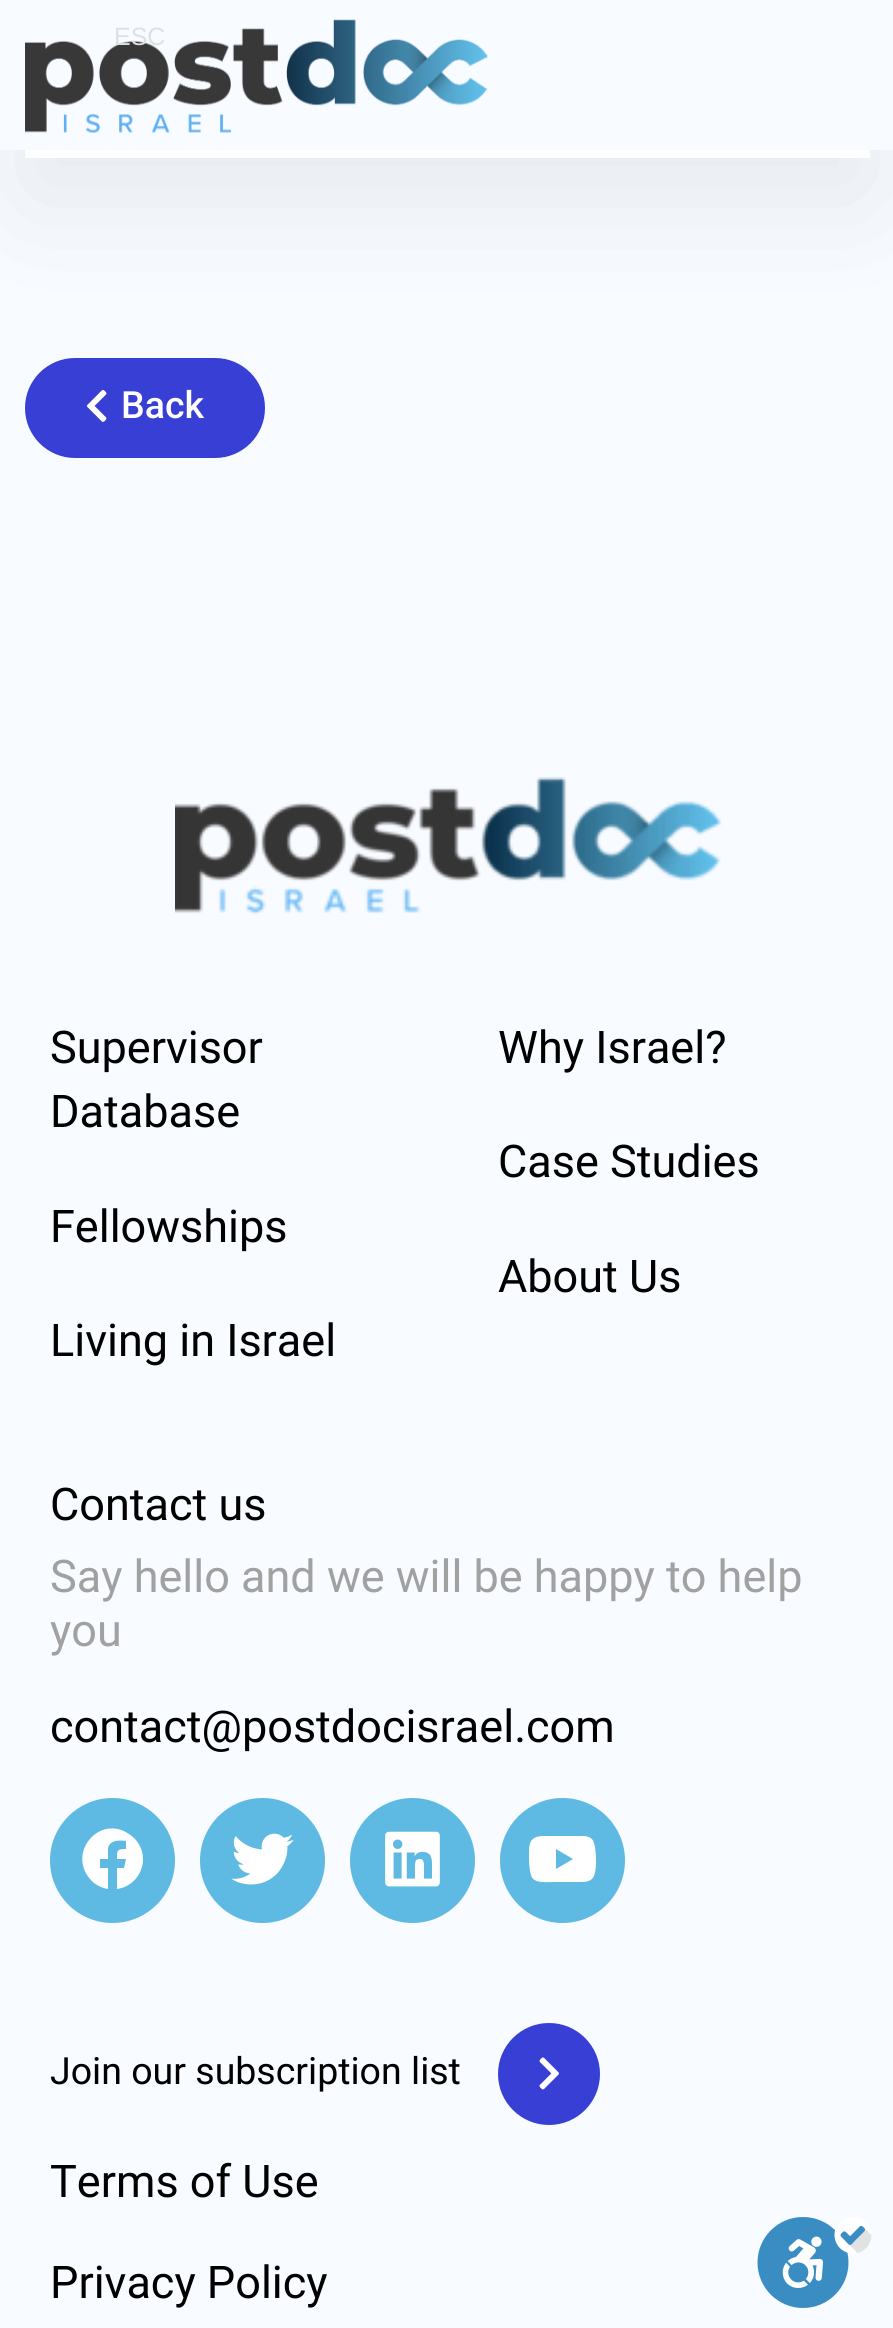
#include <cairo.h>
#include <math.h>
#include <stddef.h>

typedef struct { double x, y; const char *s; } line_t;

static void ink(cairo_t *ctx, unsigned color) {
    cairo_set_source_rgb(ctx, (color >> 16) / 255.0, (color >> 8 & 255) / 255.0, (color & 255) / 255.0);
}

static void round_path(cairo_t *ctx, double x, double y, double w, double h, double r) {
    cairo_new_sub_path(ctx);
    cairo_arc(ctx, x + w - r, y + h - r, r, 0, M_PI / 2);
    cairo_arc(ctx, x + r, y + h - r, r, M_PI / 2, M_PI);
    cairo_arc(ctx, x + r, y + r, r, M_PI, 1.5 * M_PI);
    cairo_arc(ctx, x + w - r, y + r, r, 1.5 * M_PI, 2 * M_PI);
    cairo_close_path(ctx);
}

static void blur_box(cairo_t *ctx, double x, double y, double w, double h, double r, double blur, double alpha) {
    cairo_push_group_with_content(ctx, CAIRO_CONTENT_ALPHA);
    cairo_set_operator(ctx, CAIRO_OPERATOR_SOURCE);
    for (int i = 15; i >= -15 && fmin(w, h) + blur * i / 3 > 0; i -= 2) {
        double e = blur * i / 6;
        cairo_set_source_rgba(ctx, 0, 0, 0, alpha * erfc((i - 1) / 8.5) / 2);
        round_path(ctx, x - e, y - e, w + 2 * e, h + 2 * e, fmax(0, fmin(r + e + blur * .6, fmin(w, h) / 2 + e)));
        cairo_fill(ctx);
    }
    cairo_pattern_t *soft = cairo_pop_group(ctx);
    cairo_mask(ctx, soft);
    cairo_pattern_destroy(soft);
}

static void paste(cairo_t *ctx, const char *path, double x, double y, double w, double h) {
    cairo_surface_t *image = cairo_image_surface_create_from_png(path);
    cairo_save(ctx);
    cairo_set_source_surface(ctx, image, x, y);
    cairo_rectangle(ctx, x, y, w, h);
    cairo_fill(ctx);
    cairo_restore(ctx);
    cairo_surface_destroy(image);
}

int main(void) {
    cairo_surface_t *surface = cairo_image_surface_create(CAIRO_FORMAT_RGB24, 893, 2328);
    cairo_t *ctx = cairo_create(surface);
    cairo_font_options_t *options = cairo_font_options_create();
    cairo_font_options_set_hint_metrics(options, CAIRO_HINT_METRICS_OFF);
    cairo_font_options_set_hint_style(options, CAIRO_HINT_STYLE_NONE);
    cairo_set_font_options(ctx, options);
    cairo_set_miter_limit(ctx, 4);
    ink(ctx, 0xF8FBFF);
    cairo_paint(ctx);
    ink(ctx, 0x000000);
    blur_box(ctx, 25, -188, 845, 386, 0, 62.5, 0.08);
    ink(ctx, 0xF8FBFF);
    cairo_rectangle(ctx, 0, 0, 893, 150);
    cairo_fill(ctx);
    paste(ctx, "media/2.png", 25, 19, 463, 114);
    cairo_select_font_face(ctx, "Liberation Sans", CAIRO_FONT_SLANT_NORMAL, CAIRO_FONT_WEIGHT_NORMAL);
    cairo_set_font_size(ctx, 25);
    ink(ctx, 0xDEE1E4);
    cairo_move_to(ctx, 114, 45);
    cairo_show_text(ctx, "ESC");
    paste(ctx, "media/1.png", 757, 2217, 115, 91);
    ink(ctx, 0xFFFFFF);
    cairo_rectangle(ctx, 25, 150, 845, 8);
    cairo_fill(ctx);
    ink(ctx, 0x383FD5);
    round_path(ctx, 25, 358, 240, 100, 50);
    cairo_fill(ctx);
    paste(ctx, "media/3.png", 87, 390, 20, 32);
    cairo_select_font_face(ctx, "Roboto Medium", CAIRO_FONT_SLANT_NORMAL, CAIRO_FONT_WEIGHT_NORMAL);
    cairo_set_font_size(ctx, 37.5);
    ink(ctx, 0xFFFFFF);
    cairo_move_to(ctx, 121, 418);
    cairo_show_text(ctx, "Back");
    paste(ctx, "media/4.png", 175, 777, 547, 138);
    cairo_select_font_face(ctx, "Roboto", CAIRO_FONT_SLANT_NORMAL, CAIRO_FONT_WEIGHT_NORMAL);
    cairo_set_font_size(ctx, 45);
    ink(ctx, 0x000000);
    {
        static const line_t items[] = {
            {50, 1063, "Supervisor"},
            {50, 1127, "Database"},
            {50, 1242, "Fellowships"},
            {50, 1356, "Living in Israel"},
            {498, 1063, "Why Israel?"},
            {498, 1177, "Case Studies"},
            {498, 1292, "About Us"},
            {50, 1520, "Contact us"},
        };
        for (size_t i = 0; i < sizeof items / sizeof *items; i++) {
            cairo_move_to(ctx, items[i].x, items[i].y);
            cairo_show_text(ctx, items[i].s);
        }
    }
    ink(ctx, 0xA1A1A1);
    cairo_move_to(ctx, 50, 1592);
    cairo_show_text(ctx, "Say hello and we will be happy to help");
    cairo_move_to(ctx, 50, 1646);
    cairo_show_text(ctx, "you");
    ink(ctx, 0x000000);
    cairo_move_to(ctx, 50, 1742);
    cairo_show_text(ctx, "contact@postdocisrael.com");
    ink(ctx, 0x5EBAE3);
    cairo_new_path(ctx);
    cairo_arc(ctx, 112.5, 1860.5, 62.5, 0, 2 * M_PI);
    cairo_fill(ctx);
    ink(ctx, 0xFFFFFF);
    cairo_new_path(ctx);
    cairo_move_to(ctx, 143, 1859);
    cairo_curve_to(ctx, 143, 1874, 132, 1887, 117, 1889);
    cairo_line_to(ctx, 117, 1868);
    cairo_line_to(ctx, 124, 1868);
    cairo_line_to(ctx, 126, 1859);
    cairo_line_to(ctx, 117, 1859);
    cairo_curve_to(ctx, 117, 1850, 117, 1849, 126, 1849);
    cairo_line_to(ctx, 126, 1841);
    cairo_curve_to(ctx, 119, 1840, 110, 1840, 108, 1848);
    cairo_line_to(ctx, 108, 1859);
    cairo_line_to(ctx, 100, 1859);
    cairo_line_to(ctx, 100, 1868);
    cairo_line_to(ctx, 108, 1868);
    cairo_line_to(ctx, 108, 1889);
    cairo_curve_to(ctx, 101, 1888, 94, 1884, 90, 1879);
    cairo_curve_to(ctx, 67, 1852, 100, 1814, 129, 1834);
    cairo_curve_to(ctx, 138, 1840, 143, 1849, 143, 1859);
    cairo_close_path(ctx);
    cairo_fill(ctx);
    ink(ctx, 0x5EBAE3);
    cairo_arc(ctx, 262.5, 1860.5, 62.5, 0, 2 * M_PI);
    cairo_fill(ctx);
    paste(ctx, "media/5.png", 231, 1833, 63, 52);
    cairo_arc(ctx, 412.5, 1860.5, 62.5, 0, 2 * M_PI);
    cairo_fill(ctx);
    paste(ctx, "media/6.png", 385, 1831, 55, 56);
    cairo_arc(ctx, 562.5, 1860.5, 62.5, 0, 2 * M_PI);
    cairo_fill(ctx);
    ink(ctx, 0xFFFFFF);
    cairo_new_path(ctx);
    cairo_move_to(ctx, 594, 1843);
    cairo_curve_to(ctx, 596, 1850, 596, 1857, 596, 1864);
    cairo_curve_to(ctx, 595, 1884, 589, 1882, 570, 1882);
    cairo_line_to(ctx, 553, 1882);
    cairo_curve_to(ctx, 547, 1882, 533, 1884, 531, 1875);
    cairo_curve_to(ctx, 529, 1869, 529, 1861, 529, 1854);
    cairo_curve_to(ctx, 529, 1843, 530, 1837, 542, 1836);
    cairo_line_to(ctx, 557, 1836);
    cairo_line_to(ctx, 576, 1836);
    cairo_curve_to(ctx, 583, 1836, 592, 1835, 594, 1843);
    cairo_close_path(ctx);
    cairo_move_to(ctx, 556, 1869);
    cairo_line_to(ctx, 573, 1859);
    cairo_line_to(ctx, 556, 1849);
    cairo_close_path(ctx);
    cairo_fill(ctx);
    cairo_set_font_size(ctx, 37.5);
    ink(ctx, 0x000000);
    cairo_move_to(ctx, 50, 2084);
    cairo_show_text(ctx, "Join our subscription list");
    ink(ctx, 0x383FD5);
    cairo_new_path(ctx);
    cairo_arc(ctx, 549, 2074, 51, 0, 2 * M_PI);
    cairo_fill(ctx);
    paste(ctx, "media/7.png", 539, 2057, 20, 33);
    cairo_set_font_size(ctx, 45);
    ink(ctx, 0x000000);
    cairo_move_to(ctx, 50, 2197);
    cairo_show_text(ctx, "Terms of Use");
    cairo_move_to(ctx, 50, 2298);
    cairo_show_text(ctx, "Privacy Policy");
    cairo_surface_write_to_png(surface, "image.png");
    cairo_font_options_destroy(options);
    cairo_destroy(ctx);
    cairo_surface_destroy(surface);
    return 0;
}
